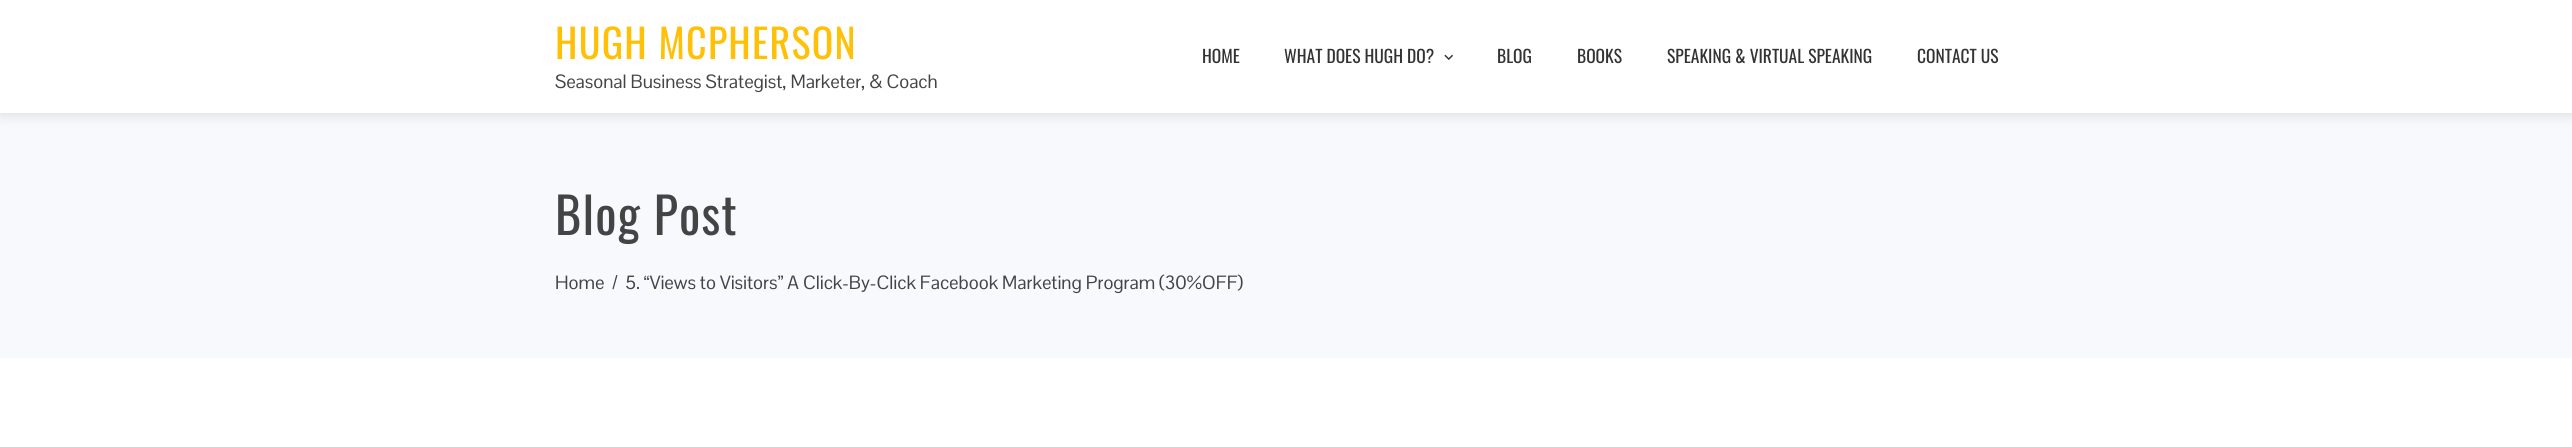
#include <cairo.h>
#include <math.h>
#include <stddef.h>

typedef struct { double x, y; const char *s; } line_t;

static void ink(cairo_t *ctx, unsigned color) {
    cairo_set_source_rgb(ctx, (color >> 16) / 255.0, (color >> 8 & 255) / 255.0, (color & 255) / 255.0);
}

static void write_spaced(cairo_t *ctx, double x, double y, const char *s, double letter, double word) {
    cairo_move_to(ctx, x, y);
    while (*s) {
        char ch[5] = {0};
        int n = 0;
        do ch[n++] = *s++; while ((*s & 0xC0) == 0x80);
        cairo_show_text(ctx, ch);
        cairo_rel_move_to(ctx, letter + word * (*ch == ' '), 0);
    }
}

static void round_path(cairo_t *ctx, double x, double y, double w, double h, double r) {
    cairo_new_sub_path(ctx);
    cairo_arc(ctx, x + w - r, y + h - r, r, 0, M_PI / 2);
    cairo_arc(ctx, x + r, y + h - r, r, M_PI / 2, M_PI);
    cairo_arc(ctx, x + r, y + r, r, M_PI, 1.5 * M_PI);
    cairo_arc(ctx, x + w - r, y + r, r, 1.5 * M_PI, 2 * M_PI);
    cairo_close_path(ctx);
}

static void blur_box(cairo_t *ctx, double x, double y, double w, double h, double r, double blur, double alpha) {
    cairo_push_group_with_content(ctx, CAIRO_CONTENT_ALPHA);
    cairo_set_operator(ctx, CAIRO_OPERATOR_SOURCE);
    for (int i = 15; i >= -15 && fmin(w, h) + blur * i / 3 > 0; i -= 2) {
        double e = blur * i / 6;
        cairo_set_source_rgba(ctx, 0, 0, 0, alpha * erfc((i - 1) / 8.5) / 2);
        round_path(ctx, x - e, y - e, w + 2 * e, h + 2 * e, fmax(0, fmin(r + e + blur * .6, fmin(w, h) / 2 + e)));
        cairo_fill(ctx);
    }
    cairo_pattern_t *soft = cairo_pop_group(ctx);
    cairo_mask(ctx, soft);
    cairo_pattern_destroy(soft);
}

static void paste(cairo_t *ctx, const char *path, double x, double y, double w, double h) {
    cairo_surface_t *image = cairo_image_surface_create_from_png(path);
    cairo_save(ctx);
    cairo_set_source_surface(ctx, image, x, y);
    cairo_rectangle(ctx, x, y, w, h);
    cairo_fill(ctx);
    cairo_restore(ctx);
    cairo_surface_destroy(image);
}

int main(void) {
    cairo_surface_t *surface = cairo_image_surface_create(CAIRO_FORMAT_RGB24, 2572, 447);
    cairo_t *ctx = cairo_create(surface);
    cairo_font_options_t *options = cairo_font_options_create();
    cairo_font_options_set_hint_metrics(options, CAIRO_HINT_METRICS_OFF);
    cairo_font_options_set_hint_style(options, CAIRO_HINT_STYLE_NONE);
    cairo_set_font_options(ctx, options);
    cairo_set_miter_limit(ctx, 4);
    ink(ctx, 0xFFFFFF);
    cairo_paint(ctx);
    ink(ctx, 0xF7F9FD);
    cairo_rectangle(ctx, 0, 113, 2572, 245);
    cairo_fill(ctx);
    ink(ctx, 0x000000);
    blur_box(ctx, 0, 4, 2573, 112, 0, 6, 0.1);
    ink(ctx, 0xFFFFFF);
    cairo_rectangle(ctx, 0, 0, 2572, 113);
    cairo_fill(ctx);
    cairo_select_font_face(ctx, "Oswald", CAIRO_FONT_SLANT_NORMAL, CAIRO_FONT_WEIGHT_NORMAL);
    cairo_set_font_size(ctx, 40);
    ink(ctx, 0xFFC107);
    write_spaced(ctx, 555, 59, "HUGH MCPHERSON", 1.25, 0);
    cairo_select_font_face(ctx, "Pontano Sans", CAIRO_FONT_SLANT_NORMAL, CAIRO_FONT_WEIGHT_NORMAL);
    cairo_set_font_size(ctx, 18.75);
    ink(ctx, 0x444444);
    cairo_move_to(ctx, 555, 88);
    cairo_show_text(ctx, "Seasonal Business Strategist, Marketer, & Coach");
    cairo_select_font_face(ctx, "Oswald", CAIRO_FONT_SLANT_NORMAL, CAIRO_FONT_WEIGHT_NORMAL);
    cairo_set_font_size(ctx, 17.5);
    ink(ctx, 0x333333);
    cairo_move_to(ctx, 1202, 63);
    cairo_show_text(ctx, "HOME");
    cairo_move_to(ctx, 1284, 63);
    cairo_show_text(ctx, "WHAT DOES HUGH DO?");
    paste(ctx, "media/1.png", 1444, 54, 9, 6);
    {
        static const line_t items[] = {
            {1497, 63, "BLOG"},
            {1577, 63, "BOOKS"},
            {1667, 63, "SPEAKING & VIRTUAL SPEAKING"},
            {1917, 63, "CONTACT US"},
        };
        for (size_t i = 0; i < sizeof items / sizeof *items; i++) {
            cairo_move_to(ctx, items[i].x, items[i].y);
            cairo_show_text(ctx, items[i].s);
        }
    }
    cairo_set_font_size(ctx, 50);
    ink(ctx, 0x444444);
    write_spaced(ctx, 555, 235, "Blog Post", 1.25, 0);
    cairo_select_font_face(ctx, "Pontano Sans", CAIRO_FONT_SLANT_NORMAL, CAIRO_FONT_WEIGHT_NORMAL);
    cairo_set_font_size(ctx, 18.75);
    {
        static const line_t items[] = {
            {555, 289, "Home"},
            {612, 289, "/"},
            {625, 289, "5. “Views to Visitors” A Click-By-Click Facebook Marketing Program (30%OFF)"},
        };
        for (size_t i = 0; i < sizeof items / sizeof *items; i++) {
            cairo_move_to(ctx, items[i].x, items[i].y);
            cairo_show_text(ctx, items[i].s);
        }
    }
    cairo_surface_write_to_png(surface, "image.png");
    cairo_font_options_destroy(options);
    cairo_destroy(ctx);
    cairo_surface_destroy(surface);
    return 0;
}
